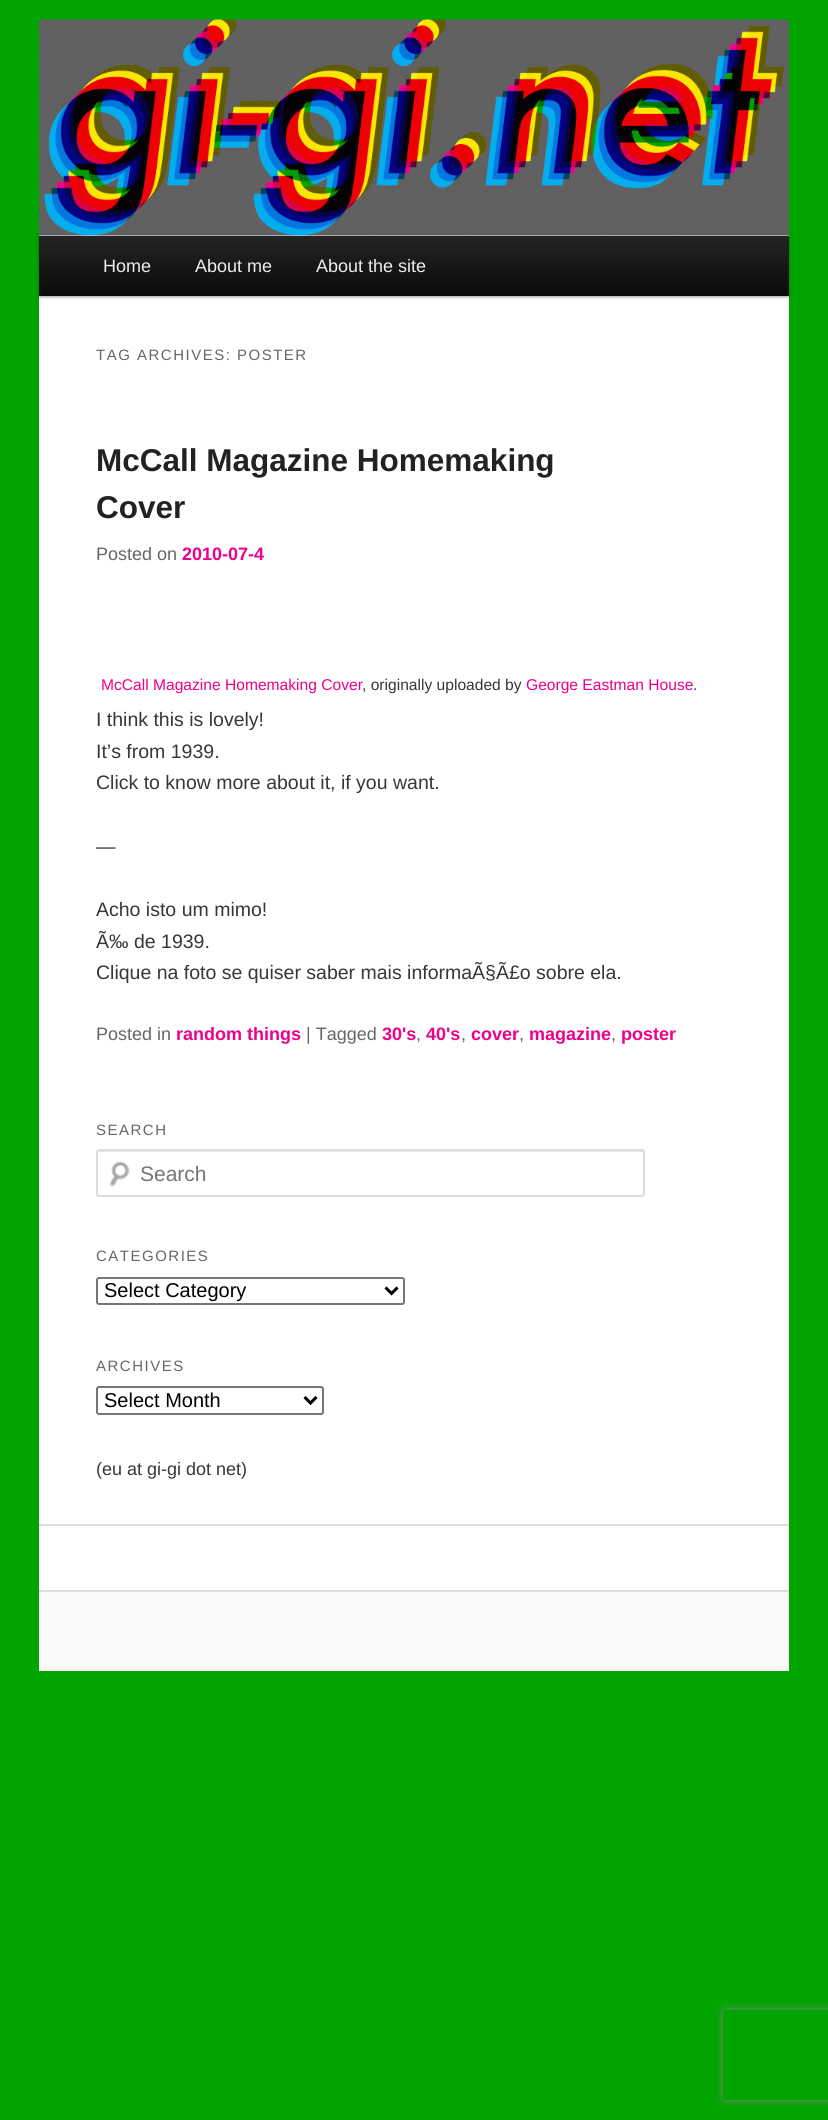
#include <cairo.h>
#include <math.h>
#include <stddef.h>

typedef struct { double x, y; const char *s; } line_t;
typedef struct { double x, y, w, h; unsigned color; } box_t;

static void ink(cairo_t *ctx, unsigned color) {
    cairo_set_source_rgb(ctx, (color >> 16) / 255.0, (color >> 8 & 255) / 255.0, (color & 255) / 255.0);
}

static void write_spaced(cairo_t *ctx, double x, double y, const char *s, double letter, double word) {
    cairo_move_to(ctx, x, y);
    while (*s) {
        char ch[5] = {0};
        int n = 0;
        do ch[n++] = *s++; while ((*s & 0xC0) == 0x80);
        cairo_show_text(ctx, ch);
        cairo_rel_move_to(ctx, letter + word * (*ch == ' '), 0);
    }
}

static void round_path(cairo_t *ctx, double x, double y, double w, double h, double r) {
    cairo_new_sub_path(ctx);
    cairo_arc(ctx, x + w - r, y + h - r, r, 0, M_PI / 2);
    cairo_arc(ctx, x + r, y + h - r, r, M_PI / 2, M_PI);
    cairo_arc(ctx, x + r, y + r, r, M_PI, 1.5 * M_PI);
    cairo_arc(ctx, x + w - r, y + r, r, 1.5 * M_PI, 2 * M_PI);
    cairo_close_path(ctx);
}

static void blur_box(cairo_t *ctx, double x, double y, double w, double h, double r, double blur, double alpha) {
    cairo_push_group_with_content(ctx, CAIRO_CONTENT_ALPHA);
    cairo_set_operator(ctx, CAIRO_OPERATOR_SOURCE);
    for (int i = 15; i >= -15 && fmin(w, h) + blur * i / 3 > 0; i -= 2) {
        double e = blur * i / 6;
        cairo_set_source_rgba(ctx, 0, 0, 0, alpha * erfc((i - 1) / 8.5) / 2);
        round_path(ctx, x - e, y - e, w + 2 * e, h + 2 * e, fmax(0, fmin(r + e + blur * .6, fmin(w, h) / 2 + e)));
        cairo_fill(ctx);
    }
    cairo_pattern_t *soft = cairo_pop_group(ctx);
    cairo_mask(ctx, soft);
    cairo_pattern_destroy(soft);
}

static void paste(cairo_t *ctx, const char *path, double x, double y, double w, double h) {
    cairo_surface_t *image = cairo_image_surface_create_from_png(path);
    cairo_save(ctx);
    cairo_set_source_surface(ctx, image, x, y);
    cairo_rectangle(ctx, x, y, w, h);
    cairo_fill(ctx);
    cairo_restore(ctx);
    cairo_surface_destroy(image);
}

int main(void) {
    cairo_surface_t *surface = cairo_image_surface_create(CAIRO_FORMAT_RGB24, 828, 2120);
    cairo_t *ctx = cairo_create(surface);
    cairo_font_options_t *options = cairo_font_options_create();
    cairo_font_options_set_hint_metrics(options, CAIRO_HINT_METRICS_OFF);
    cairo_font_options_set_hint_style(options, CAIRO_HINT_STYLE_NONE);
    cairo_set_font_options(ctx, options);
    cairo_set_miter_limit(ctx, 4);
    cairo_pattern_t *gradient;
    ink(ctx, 0x00A500);
    cairo_paint(ctx);
    ink(ctx, 0xFFFFFF);
    cairo_rectangle(ctx, 39, 235, 750, 1355);
    cairo_fill(ctx);
    ink(ctx, 0x000000);
    blur_box(ctx, 39, 237, 750, 60, 0, 1.5, 0.4);
    paste(ctx, "media/1.png", 39, 19, 750, 217);
    gradient = cairo_pattern_create_linear(414, 235, 414, 296);
    cairo_pattern_add_color_stop_rgba(gradient, 0, 0.145, 0.145, 0.145, 1);
    cairo_pattern_add_color_stop_rgba(gradient, 1, 0.039, 0.039, 0.039, 1);
    cairo_set_source(ctx, gradient);
    cairo_pattern_destroy(gradient);
    cairo_rectangle(ctx, 39, 236, 750, 60);
    cairo_fill(ctx);
    cairo_select_font_face(ctx, "Liberation Sans", CAIRO_FONT_SLANT_NORMAL, CAIRO_FONT_WEIGHT_NORMAL);
    cairo_set_font_size(ctx, 18);
    ink(ctx, 0xEEEEEE);
    {
        static const line_t items[] = {
            {103, 272, "Home"},
            {195, 272, "About me"},
            {316, 272, "About the site"},
        };
        for (size_t i = 0; i < sizeof items / sizeof *items; i++) {
            cairo_move_to(ctx, items[i].x, items[i].y);
            cairo_show_text(ctx, items[i].s);
        }
    }
    cairo_set_font_size(ctx, 15);
    ink(ctx, 0x666666);
    write_spaced(ctx, 96, 360, "TAG ARCHIVES: POSTER", 1.5, 0);
    cairo_select_font_face(ctx, "Liberation Sans", CAIRO_FONT_SLANT_NORMAL, CAIRO_FONT_WEIGHT_BOLD);
    cairo_set_font_size(ctx, 31.5);
    ink(ctx, 0x222222);
    cairo_move_to(ctx, 96, 471);
    cairo_show_text(ctx, "McCall Magazine Homemaking");
    cairo_move_to(ctx, 96, 518);
    cairo_show_text(ctx, "Cover");
    cairo_select_font_face(ctx, "Liberation Sans", CAIRO_FONT_SLANT_NORMAL, CAIRO_FONT_WEIGHT_NORMAL);
    cairo_set_font_size(ctx, 18);
    ink(ctx, 0x666666);
    cairo_move_to(ctx, 96, 560);
    cairo_show_text(ctx, "Posted on");
    cairo_select_font_face(ctx, "Liberation Sans", CAIRO_FONT_SLANT_NORMAL, CAIRO_FONT_WEIGHT_BOLD);
    ink(ctx, 0xEC008C);
    cairo_move_to(ctx, 182, 560);
    cairo_show_text(ctx, "2010-07-4");
    cairo_select_font_face(ctx, "Liberation Sans", CAIRO_FONT_SLANT_NORMAL, CAIRO_FONT_WEIGHT_NORMAL);
    cairo_set_font_size(ctx, 15.6);
    cairo_move_to(ctx, 101, 690);
    cairo_show_text(ctx, "McCall Magazine Homemaking Cover");
    ink(ctx, 0x373737);
    cairo_move_to(ctx, 362, 690);
    cairo_show_text(ctx, ", originally uploaded by");
    ink(ctx, 0xEC008C);
    cairo_move_to(ctx, 526, 690);
    cairo_show_text(ctx, "George Eastman House");
    ink(ctx, 0x373737);
    cairo_move_to(ctx, 693, 690);
    cairo_show_text(ctx, ".");
    cairo_set_font_size(ctx, 19.5);
    {
        static const line_t items[] = {
            {96, 726, "I think this is lovely!"},
            {96, 758, "It’s from 1939."},
            {96, 789, "Click to know more about it, if you want."},
            {96, 853, "—"},
            {96, 916, "Acho isto um mimo!"},
            {96, 948, "Ã‰ de 1939."},
            {96, 979, "Clique na foto se quiser saber mais informaÃ§Ã£o sobre ela."},
        };
        for (size_t i = 0; i < sizeof items / sizeof *items; i++) {
            cairo_move_to(ctx, items[i].x, items[i].y);
            cairo_show_text(ctx, items[i].s);
        }
    }
    cairo_set_font_size(ctx, 18);
    ink(ctx, 0x666666);
    cairo_move_to(ctx, 96, 1040);
    cairo_show_text(ctx, "Posted in");
    cairo_select_font_face(ctx, "Liberation Sans", CAIRO_FONT_SLANT_NORMAL, CAIRO_FONT_WEIGHT_BOLD);
    ink(ctx, 0xEC008C);
    cairo_move_to(ctx, 176, 1040);
    cairo_show_text(ctx, "random things");
    cairo_select_font_face(ctx, "Liberation Sans", CAIRO_FONT_SLANT_NORMAL, CAIRO_FONT_WEIGHT_NORMAL);
    ink(ctx, 0x666666);
    cairo_move_to(ctx, 306, 1040);
    cairo_show_text(ctx, "| Tagged");
    cairo_select_font_face(ctx, "Liberation Sans", CAIRO_FONT_SLANT_NORMAL, CAIRO_FONT_WEIGHT_BOLD);
    ink(ctx, 0xEC008C);
    cairo_move_to(ctx, 382, 1040);
    cairo_show_text(ctx, "30's");
    cairo_select_font_face(ctx, "Liberation Sans", CAIRO_FONT_SLANT_NORMAL, CAIRO_FONT_WEIGHT_NORMAL);
    ink(ctx, 0x666666);
    cairo_move_to(ctx, 416, 1040);
    cairo_show_text(ctx, ",");
    cairo_select_font_face(ctx, "Liberation Sans", CAIRO_FONT_SLANT_NORMAL, CAIRO_FONT_WEIGHT_BOLD);
    ink(ctx, 0xEC008C);
    cairo_move_to(ctx, 426, 1040);
    cairo_show_text(ctx, "40's");
    cairo_select_font_face(ctx, "Liberation Sans", CAIRO_FONT_SLANT_NORMAL, CAIRO_FONT_WEIGHT_NORMAL);
    ink(ctx, 0x666666);
    cairo_move_to(ctx, 461, 1040);
    cairo_show_text(ctx, ",");
    cairo_select_font_face(ctx, "Liberation Sans", CAIRO_FONT_SLANT_NORMAL, CAIRO_FONT_WEIGHT_BOLD);
    ink(ctx, 0xEC008C);
    cairo_move_to(ctx, 471, 1040);
    cairo_show_text(ctx, "cover");
    cairo_select_font_face(ctx, "Liberation Sans", CAIRO_FONT_SLANT_NORMAL, CAIRO_FONT_WEIGHT_NORMAL);
    ink(ctx, 0x666666);
    cairo_move_to(ctx, 519, 1040);
    cairo_show_text(ctx, ",");
    cairo_select_font_face(ctx, "Liberation Sans", CAIRO_FONT_SLANT_NORMAL, CAIRO_FONT_WEIGHT_BOLD);
    ink(ctx, 0xEC008C);
    cairo_move_to(ctx, 529, 1040);
    cairo_show_text(ctx, "magazine");
    cairo_select_font_face(ctx, "Liberation Sans", CAIRO_FONT_SLANT_NORMAL, CAIRO_FONT_WEIGHT_NORMAL);
    ink(ctx, 0x666666);
    cairo_move_to(ctx, 611, 1040);
    cairo_show_text(ctx, ",");
    cairo_select_font_face(ctx, "Liberation Sans", CAIRO_FONT_SLANT_NORMAL, CAIRO_FONT_WEIGHT_BOLD);
    ink(ctx, 0xEC008C);
    cairo_move_to(ctx, 621, 1040);
    cairo_show_text(ctx, "poster");
    cairo_select_font_face(ctx, "Liberation Sans", CAIRO_FONT_SLANT_NORMAL, CAIRO_FONT_WEIGHT_NORMAL);
    cairo_set_font_size(ctx, 15);
    ink(ctx, 0x666666);
    write_spaced(ctx, 96, 1135, "SEARCH", 1.5, 0);
    paste(ctx, "media/2.png", 109, 1161, 21, 26);
    ink(ctx, 0xE6E6E6);
    cairo_new_path(ctx);
    cairo_move_to(ctx, 99, 1152);
    cairo_line_to(ctx, 642, 1152);
    cairo_curve_to(ctx, 643, 1152, 644, 1153, 644, 1154);
    cairo_line_to(ctx, 644, 1152);
    cairo_line_to(ctx, 642, 1151);
    cairo_line_to(ctx, 99, 1151);
    cairo_curve_to(ctx, 98, 1152, 98, 1153, 98, 1154);
    cairo_curve_to(ctx, 98, 1153, 98, 1152, 99, 1152);
    cairo_close_path(ctx);
    cairo_fill(ctx);
    round_path(ctx, 97, 1150, 547, 46, 2);
    ink(ctx, 0xDDDDDD);
    cairo_stroke(ctx);
    cairo_set_font_size(ctx, 21);
    ink(ctx, 0x757575);
    cairo_move_to(ctx, 140, 1181);
    cairo_show_text(ctx, "Search");
    cairo_set_font_size(ctx, 15);
    ink(ctx, 0x666666);
    write_spaced(ctx, 96, 1261, "CATEGORIES", 1.5, 0);
    round_path(ctx, 97, 1278, 307, 26, 2);
    ink(ctx, 0x767676);
    cairo_stroke(ctx);
    cairo_new_path(ctx);
    cairo_move_to(ctx, 385.5, 1287.5);
    cairo_line_to(ctx, 391.5, 1293.5);
    cairo_line_to(ctx, 397.5, 1287.5);
    ink(ctx, 0x000000);
    cairo_set_line_width(ctx, 3);
    cairo_stroke(ctx);
    cairo_set_font_size(ctx, 20);
    cairo_move_to(ctx, 104, 1297);
    cairo_show_text(ctx, "Select Category");
    cairo_set_font_size(ctx, 15);
    ink(ctx, 0x666666);
    write_spaced(ctx, 96, 1371, "ARCHIVES", 1.5, 0);
    round_path(ctx, 97, 1387, 226, 27, 2);
    ink(ctx, 0x767676);
    cairo_set_line_width(ctx, 2);
    cairo_stroke(ctx);
    cairo_new_path(ctx);
    cairo_move_to(ctx, 304.5, 1397);
    cairo_line_to(ctx, 310.5, 1403);
    cairo_line_to(ctx, 316.5, 1397);
    ink(ctx, 0x000000);
    cairo_set_line_width(ctx, 3);
    cairo_stroke(ctx);
    cairo_set_font_size(ctx, 20);
    cairo_move_to(ctx, 104, 1407);
    cairo_show_text(ctx, "Select Month");
    cairo_set_font_size(ctx, 18);
    ink(ctx, 0x373737);
    cairo_move_to(ctx, 96, 1475);
    cairo_show_text(ctx, "(eu at gi-gi dot net)");
    {
        static const box_t items[] = {
            {39, 1524, 750, 2, 0xDDDDDD},
            {39, 1592, 750, 79, 0xF9F9F9},
            {39, 1590, 750, 2, 0xDDDDDD},
        };
        for (size_t i = 0; i < sizeof items / sizeof *items; i++) {
            ink(ctx, items[i].color);
            cairo_rectangle(ctx, items[i].x, items[i].y, items[i].w, items[i].h);
            cairo_fill(ctx);
        }
    }
    cairo_save(ctx);
    cairo_set_fill_rule(ctx, CAIRO_FILL_RULE_EVEN_ODD);
    cairo_new_path(ctx);
    cairo_move_to(ctx, 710, 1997);
    cairo_line_to(ctx, 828, 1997);
    cairo_line_to(ctx, 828, 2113);
    cairo_line_to(ctx, 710, 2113);
    cairo_close_path(ctx);
    cairo_move_to(ctx, 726, 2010);
    cairo_line_to(ctx, 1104, 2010);
    cairo_curve_to(ctx, 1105.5, 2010, 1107, 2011.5, 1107, 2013);
    cairo_line_to(ctx, 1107, 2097);
    cairo_curve_to(ctx, 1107, 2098.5, 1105.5, 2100, 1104, 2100);
    cairo_line_to(ctx, 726, 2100);
    cairo_curve_to(ctx, 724.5, 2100, 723, 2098.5, 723, 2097);
    cairo_line_to(ctx, 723, 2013);
    cairo_curve_to(ctx, 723, 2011.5, 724.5, 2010, 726, 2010);
    cairo_close_path(ctx);
    cairo_clip(ctx);
    ink(ctx, 0x808080);
    blur_box(ctx, 723, 2010, 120, 90, 3, 4, 1);
    cairo_restore(ctx);
    cairo_surface_write_to_png(surface, "image.png");
    cairo_font_options_destroy(options);
    cairo_destroy(ctx);
    cairo_surface_destroy(surface);
    return 0;
}
